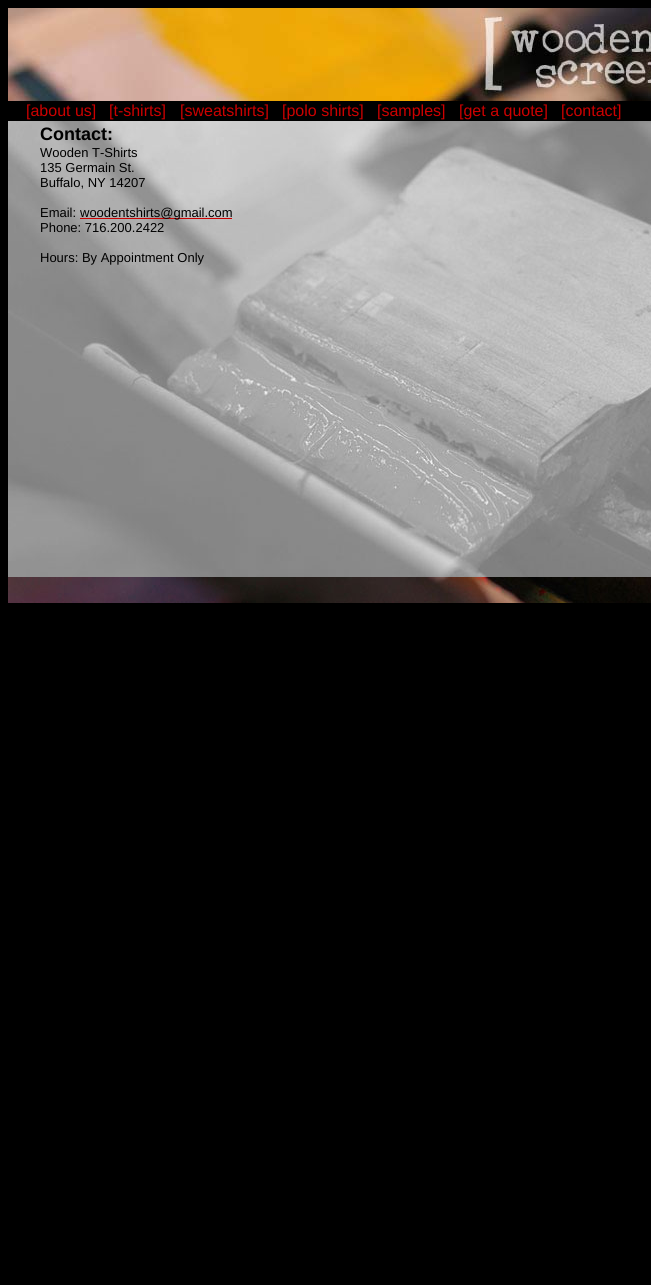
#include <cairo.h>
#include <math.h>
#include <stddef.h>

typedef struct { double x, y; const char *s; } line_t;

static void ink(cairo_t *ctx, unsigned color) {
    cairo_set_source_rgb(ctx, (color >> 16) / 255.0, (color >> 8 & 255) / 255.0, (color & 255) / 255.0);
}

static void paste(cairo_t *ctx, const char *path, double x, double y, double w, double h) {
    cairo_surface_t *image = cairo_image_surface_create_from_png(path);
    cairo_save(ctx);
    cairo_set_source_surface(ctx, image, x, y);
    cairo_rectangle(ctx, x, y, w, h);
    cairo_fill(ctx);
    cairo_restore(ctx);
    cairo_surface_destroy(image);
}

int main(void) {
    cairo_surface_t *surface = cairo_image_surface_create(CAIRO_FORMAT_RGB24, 651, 1285);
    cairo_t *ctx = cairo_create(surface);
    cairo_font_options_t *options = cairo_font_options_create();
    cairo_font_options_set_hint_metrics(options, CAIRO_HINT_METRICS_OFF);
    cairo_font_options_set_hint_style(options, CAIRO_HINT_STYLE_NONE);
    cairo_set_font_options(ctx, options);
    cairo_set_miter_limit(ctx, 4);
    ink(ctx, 0x000000);
    cairo_paint(ctx);
    paste(ctx, "media/1.png", 8, 8, 643, 93);
    cairo_select_font_face(ctx, "Liberation Sans", CAIRO_FONT_SLANT_NORMAL, CAIRO_FONT_WEIGHT_NORMAL);
    cairo_set_font_size(ctx, 16);
    ink(ctx, 0xCC0000);
    {
        static const line_t items[] = {
            {26, 116, "[about us]"},
            {109, 116, "[t-shirts]"},
            {180, 116, "[sweatshirts]"},
            {282, 116, "[polo shirts]"},
            {377, 116, "[samples]"},
            {459, 116, "[get a quote]"},
            {561, 116, "[contact]"},
        };
        for (size_t i = 0; i < sizeof items / sizeof *items; i++) {
            cairo_move_to(ctx, items[i].x, items[i].y);
            cairo_show_text(ctx, items[i].s);
        }
    }
    paste(ctx, "media/2.png", 8, 121, 643, 456);
    cairo_select_font_face(ctx, "Liberation Sans", CAIRO_FONT_SLANT_NORMAL, CAIRO_FONT_WEIGHT_BOLD);
    cairo_set_font_size(ctx, 18);
    ink(ctx, 0x000000);
    cairo_move_to(ctx, 40, 140);
    cairo_show_text(ctx, "Contact:");
    cairo_select_font_face(ctx, "Liberation Sans", CAIRO_FONT_SLANT_NORMAL, CAIRO_FONT_WEIGHT_NORMAL);
    cairo_set_font_size(ctx, 13);
    {
        static const line_t items[] = {
            {40, 157, "Wooden T-Shirts"},
            {40, 172, "135 Germain St."},
            {40, 187, "Buffalo, NY 14207"},
            {40, 217, "Email:"},
        };
        for (size_t i = 0; i < sizeof items / sizeof *items; i++) {
            cairo_move_to(ctx, items[i].x, items[i].y);
            cairo_show_text(ctx, items[i].s);
        }
    }
    ink(ctx, 0xCC0000);
    cairo_rectangle(ctx, 80, 218, 152, 1);
    cairo_fill(ctx);
    ink(ctx, 0x000000);
    {
        static const line_t items[] = {
            {80, 217, "woodentshirts@gmail.com"},
            {40, 232, "Phone: 716.200.2422"},
            {40, 262, "Hours: By Appointment Only"},
        };
        for (size_t i = 0; i < sizeof items / sizeof *items; i++) {
            cairo_move_to(ctx, items[i].x, items[i].y);
            cairo_show_text(ctx, items[i].s);
        }
    }
    paste(ctx, "media/3.png", 8, 577, 643, 26);
    cairo_surface_write_to_png(surface, "image.png");
    cairo_font_options_destroy(options);
    cairo_destroy(ctx);
    cairo_surface_destroy(surface);
    return 0;
}
